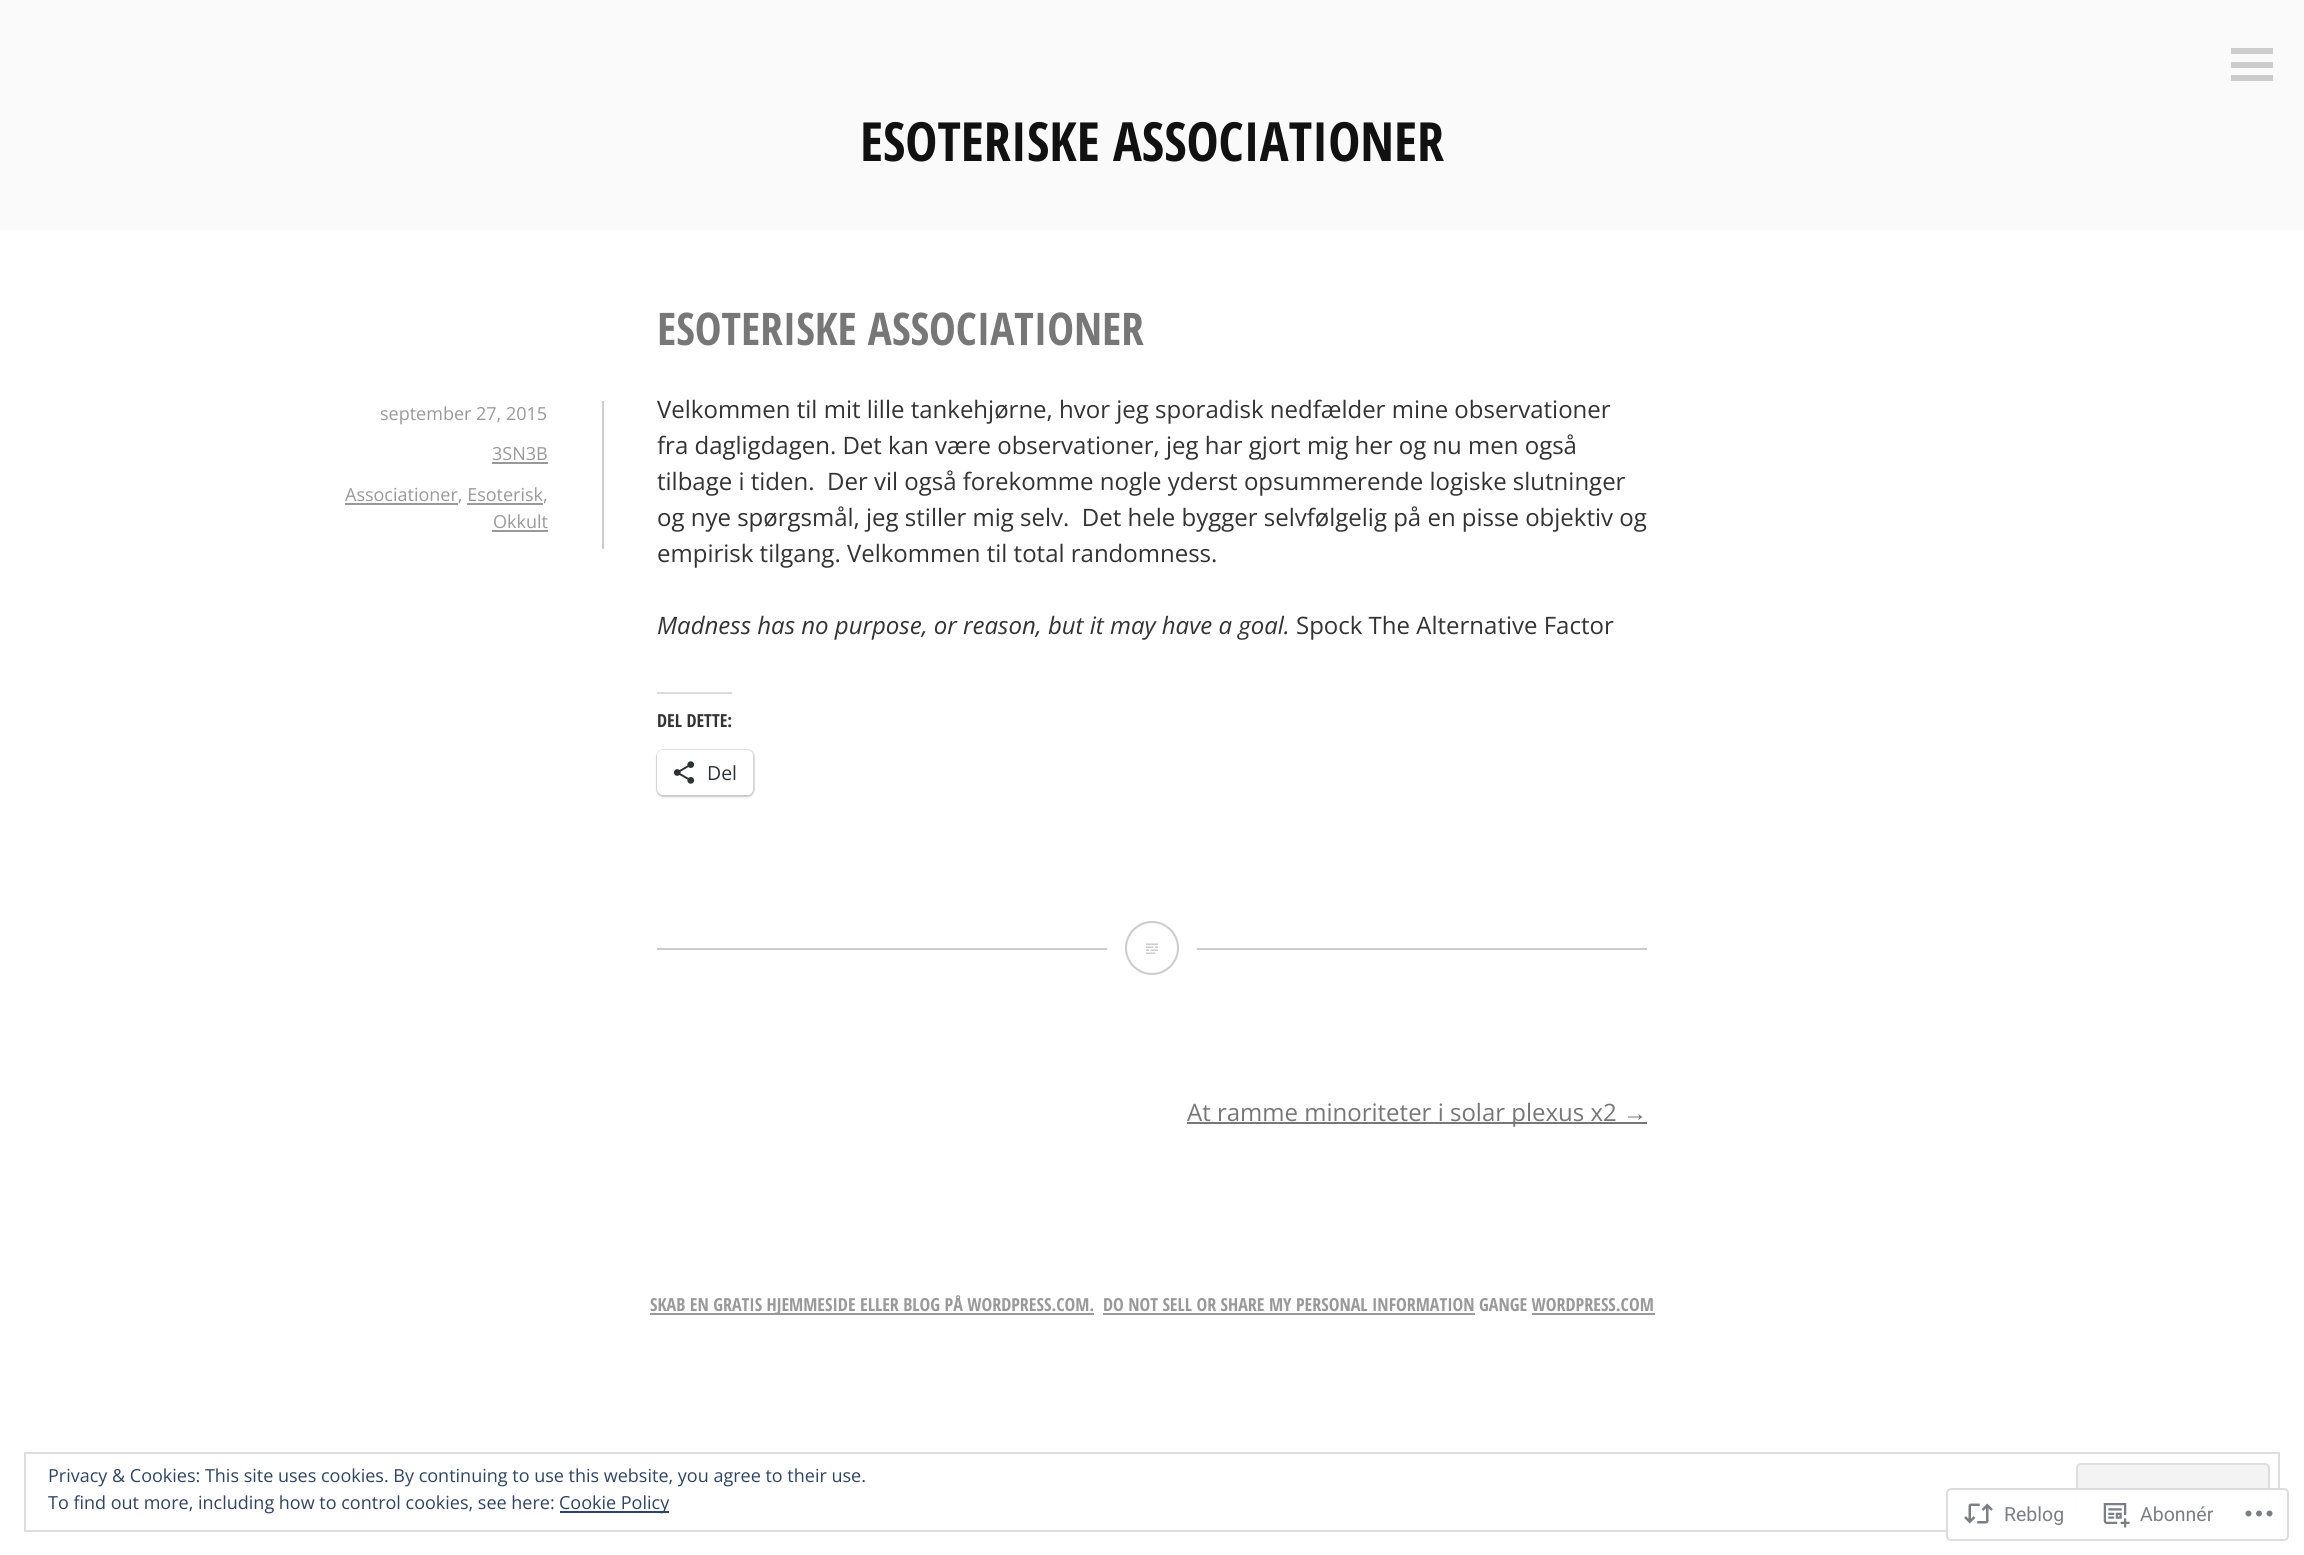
#include <cairo.h>
#include <math.h>
#include <stddef.h>

typedef struct { double x, y; const char *s; } line_t;
typedef struct { double x, y, w, h; unsigned color; } box_t;

static void ink(cairo_t *ctx, unsigned color) {
    cairo_set_source_rgb(ctx, (color >> 16) / 255.0, (color >> 8 & 255) / 255.0, (color & 255) / 255.0);
}

static void round_path(cairo_t *ctx, double x, double y, double w, double h, double r) {
    cairo_new_sub_path(ctx);
    cairo_arc(ctx, x + w - r, y + h - r, r, 0, M_PI / 2);
    cairo_arc(ctx, x + r, y + h - r, r, M_PI / 2, M_PI);
    cairo_arc(ctx, x + r, y + r, r, M_PI, 1.5 * M_PI);
    cairo_arc(ctx, x + w - r, y + r, r, 1.5 * M_PI, 2 * M_PI);
    cairo_close_path(ctx);
}

static void blur_box(cairo_t *ctx, double x, double y, double w, double h, double r, double blur, double alpha) {
    cairo_push_group_with_content(ctx, CAIRO_CONTENT_ALPHA);
    cairo_set_operator(ctx, CAIRO_OPERATOR_SOURCE);
    for (int i = 15; i >= -15 && fmin(w, h) + blur * i / 3 > 0; i -= 2) {
        double e = blur * i / 6;
        cairo_set_source_rgba(ctx, 0, 0, 0, alpha * erfc((i - 1) / 8.5) / 2);
        round_path(ctx, x - e, y - e, w + 2 * e, h + 2 * e, fmax(0, fmin(r + e + blur * .6, fmin(w, h) / 2 + e)));
        cairo_fill(ctx);
    }
    cairo_pattern_t *soft = cairo_pop_group(ctx);
    cairo_mask(ctx, soft);
    cairo_pattern_destroy(soft);
}

static void paste(cairo_t *ctx, const char *path, double x, double y, double w, double h) {
    cairo_surface_t *image = cairo_image_surface_create_from_png(path);
    cairo_save(ctx);
    cairo_set_source_surface(ctx, image, x, y);
    cairo_rectangle(ctx, x, y, w, h);
    cairo_fill(ctx);
    cairo_restore(ctx);
    cairo_surface_destroy(image);
}

int main(void) {
    cairo_surface_t *surface = cairo_image_surface_create(CAIRO_FORMAT_RGB24, 2304, 1555);
    cairo_t *ctx = cairo_create(surface);
    cairo_font_options_t *options = cairo_font_options_create();
    cairo_font_options_set_hint_metrics(options, CAIRO_HINT_METRICS_OFF);
    cairo_font_options_set_hint_style(options, CAIRO_HINT_STYLE_NONE);
    cairo_set_font_options(ctx, options);
    cairo_set_miter_limit(ctx, 4);
    ink(ctx, 0xFFFFFF);
    cairo_paint(ctx);
    {
        static const box_t items[] = {
            {0, 0, 2304, 230, 0xFAFAFA},
            {2231, 48, 42, 6, 0xCCCCCC},
            {2231, 62, 42, 6, 0xCCCCCC},
            {2231, 75, 42, 6, 0xCCCCCC},
        };
        for (size_t i = 0; i < sizeof items / sizeof *items; i++) {
            ink(ctx, items[i].color);
            cairo_rectangle(ctx, items[i].x, items[i].y, items[i].w, items[i].h);
            cairo_fill(ctx);
        }
    }
    cairo_select_font_face(ctx, "Open Sans Condensed", CAIRO_FONT_SLANT_NORMAL, CAIRO_FONT_WEIGHT_BOLD);
    cairo_set_font_size(ctx, 54);
    ink(ctx, 0x111111);
    cairo_move_to(ctx, 860, 161);
    cairo_show_text(ctx, "ESOTERISKE ASSOCIATIONER");
    ink(ctx, 0xCCCCCC);
    cairo_rectangle(ctx, 657, 948, 990, 2);
    cairo_fill(ctx);
    cairo_set_font_size(ctx, 45);
    ink(ctx, 0x777777);
    cairo_move_to(ctx, 657, 345);
    cairo_show_text(ctx, "ESOTERISKE ASSOCIATIONER");
    ink(ctx, 0xCCCCCC);
    cairo_rectangle(ctx, 602, 401, 2, 148);
    cairo_fill(ctx);
    cairo_select_font_face(ctx, "Open Sans", CAIRO_FONT_SLANT_NORMAL, CAIRO_FONT_WEIGHT_NORMAL);
    cairo_set_font_size(ctx, 18);
    ink(ctx, 0x999999);
    cairo_move_to(ctx, 380, 420);
    cairo_show_text(ctx, "september 27, 2015");
    cairo_move_to(ctx, 492, 460);
    cairo_show_text(ctx, "3SN3B");
    cairo_rectangle(ctx, 492, 462, 56, 2);
    cairo_fill(ctx);
    cairo_rectangle(ctx, 345, 503, 113, 2);
    cairo_fill(ctx);
    cairo_move_to(ctx, 345, 501);
    cairo_show_text(ctx, "Associationer, Esoterisk,");
    cairo_rectangle(ctx, 467, 503, 76, 2);
    cairo_fill(ctx);
    cairo_move_to(ctx, 493, 528);
    cairo_show_text(ctx, "Okkult");
    cairo_rectangle(ctx, 492, 530, 56, 2);
    cairo_fill(ctx);
    cairo_set_font_size(ctx, 24);
    ink(ctx, 0x333333);
    {
        static const line_t items[] = {
            {657, 418, "Velkommen til mit lille tankehjørne, hvor jeg sporadisk nedfælder mine observationer"},
            {657, 454, "fra dagligdagen. Det kan være observationer, jeg har gjort mig her og nu men også"},
            {657, 490, "tilbage i tiden.  Der vil også forekomme nogle yderst opsummerende logiske slutninger"},
            {657, 526, "og nye spørgsmål, jeg stiller mig selv.  Det hele bygger selvfølgelig på en pisse objektiv og"},
            {657, 562, "empirisk tilgang. Velkommen til total randomness."},
        };
        for (size_t i = 0; i < sizeof items / sizeof *items; i++) {
            cairo_move_to(ctx, items[i].x, items[i].y);
            cairo_show_text(ctx, items[i].s);
        }
    }
    cairo_select_font_face(ctx, "Open Sans", CAIRO_FONT_SLANT_ITALIC, CAIRO_FONT_WEIGHT_NORMAL);
    cairo_move_to(ctx, 657, 634);
    cairo_show_text(ctx, "Madness has no purpose, or reason, but it may have a goal.");
    cairo_select_font_face(ctx, "Open Sans", CAIRO_FONT_SLANT_NORMAL, CAIRO_FONT_WEIGHT_NORMAL);
    cairo_move_to(ctx, 1296, 634);
    cairo_show_text(ctx, "Spock The Alternative Factor");
    ink(ctx, 0xDCDCDE);
    cairo_rectangle(ctx, 657, 692, 75, 2);
    cairo_fill(ctx);
    cairo_select_font_face(ctx, "Open Sans Condensed", CAIRO_FONT_SLANT_NORMAL, CAIRO_FONT_WEIGHT_BOLD);
    cairo_set_font_size(ctx, 18);
    ink(ctx, 0x333333);
    cairo_move_to(ctx, 657, 727);
    cairo_show_text(ctx, "DEL DETTE:");
    round_path(ctx, 657, 750, 97, 46, 7);
    ink(ctx, 0xE0E0E0);
    cairo_stroke(ctx);
    ink(ctx, 0x000000);
    blur_box(ctx, 657, 752, 96, 45, 6, 1.5, 0.12);
    ink(ctx, 0xFFFFFF);
    round_path(ctx, 657, 750, 96, 45, 6);
    cairo_fill(ctx);
    paste(ctx, "media/1.png", 673, 761, 22, 23);
    cairo_select_font_face(ctx, "Open Sans", CAIRO_FONT_SLANT_NORMAL, CAIRO_FONT_WEIGHT_NORMAL);
    cairo_set_font_size(ctx, 19.5);
    ink(ctx, 0x2C3338);
    cairo_move_to(ctx, 707, 780);
    cairo_show_text(ctx, "Del");
    ink(ctx, 0xFFFFFF);
    cairo_rectangle(ctx, 1107, 948, 90, 2);
    cairo_fill(ctx);
    cairo_arc(ctx, 1152, 948, 26, 0, 2 * M_PI);
    ink(ctx, 0xCCCCCC);
    cairo_stroke(ctx);
    paste(ctx, "media/2.png", 1146, 943, 12, 11);
    ink(ctx, 0x777777);
    cairo_rectangle(ctx, 1187, 1122, 460, 2);
    cairo_fill(ctx);
    cairo_set_font_size(ctx, 24);
    cairo_move_to(ctx, 1187, 1121);
    cairo_show_text(ctx, "At ramme minoriteter i solar plexus x2");
    cairo_select_font_face(ctx, "Liberation Sans", CAIRO_FONT_SLANT_NORMAL, CAIRO_FONT_WEIGHT_NORMAL);
    cairo_move_to(ctx, 1623, 1121);
    cairo_show_text(ctx, "→");
    ink(ctx, 0x999999);
    cairo_rectangle(ctx, 650, 1313, 444, 2);
    cairo_fill(ctx);
    cairo_select_font_face(ctx, "Open Sans Condensed", CAIRO_FONT_SLANT_NORMAL, CAIRO_FONT_WEIGHT_BOLD);
    cairo_set_font_size(ctx, 18);
    cairo_move_to(ctx, 650, 1311);
    cairo_show_text(ctx, "SKAB EN GRATIS HJEMMESIDE ELLER BLOG PÅ WORDPRESS.COM.");
    cairo_move_to(ctx, 1103, 1311);
    cairo_show_text(ctx, "DO NOT SELL OR SHARE MY PERSONAL INFORMATION GANGE WORDPRESS.COM");
    cairo_rectangle(ctx, 1103, 1313, 372, 2);
    cairo_fill(ctx);
    cairo_rectangle(ctx, 1532, 1313, 123, 2);
    cairo_fill(ctx);
    cairo_rectangle(ctx, 25, 1453, 2254, 78);
    ink(ctx, 0xDEDEDE);
    cairo_stroke(ctx);
    cairo_select_font_face(ctx, "Open Sans", CAIRO_FONT_SLANT_NORMAL, CAIRO_FONT_WEIGHT_NORMAL);
    ink(ctx, 0x2E4467);
    cairo_move_to(ctx, 48, 1482);
    cairo_show_text(ctx, "Privacy & Cookies: This site uses cookies. By continuing to use this website, you agree to their use.");
    ink(ctx, 0xF3F3F3);
    round_path(ctx, 2077, 1464, 192, 56, 4);
    cairo_fill_preserve(ctx);
    ink(ctx, 0xDEDEDE);
    cairo_stroke(ctx);
    ink(ctx, 0x2E4467);
    cairo_move_to(ctx, 48, 1509);
    cairo_show_text(ctx, "To find out more, including how to control cookies, see here:");
    cairo_rectangle(ctx, 560, 1511, 109, 2);
    cairo_fill(ctx);
    cairo_move_to(ctx, 559, 1509);
    cairo_show_text(ctx, "Cookie Policy");
    cairo_set_source_rgba(ctx, 1, 1, 1, 0.98);
    round_path(ctx, 1946, 1488, 343, 53, 5);
    cairo_fill(ctx);
    round_path(ctx, 1947, 1489, 341, 51, 4);
    cairo_set_source_rgba(ctx, 0.863, 0.863, 0.871, 0.98);
    cairo_stroke(ctx);
    paste(ctx, "media/3.png", 1964, 1503, 29, 21);
    cairo_select_font_face(ctx, "Roboto", CAIRO_FONT_SLANT_NORMAL, CAIRO_FONT_WEIGHT_NORMAL);
    cairo_set_font_size(ctx, 19.5);
    ink(ctx, 0x7B7F85);
    cairo_move_to(ctx, 2004, 1521);
    cairo_show_text(ctx, "Reblog");
    paste(ctx, "media/4.png", 2103, 1503, 27, 25);
    cairo_move_to(ctx, 2140, 1521);
    cairo_show_text(ctx, "Abonnér");
    paste(ctx, "media/5.png", 2245, 1510, 28, 7);
    cairo_surface_write_to_png(surface, "image.png");
    cairo_font_options_destroy(options);
    cairo_destroy(ctx);
    cairo_surface_destroy(surface);
    return 0;
}
